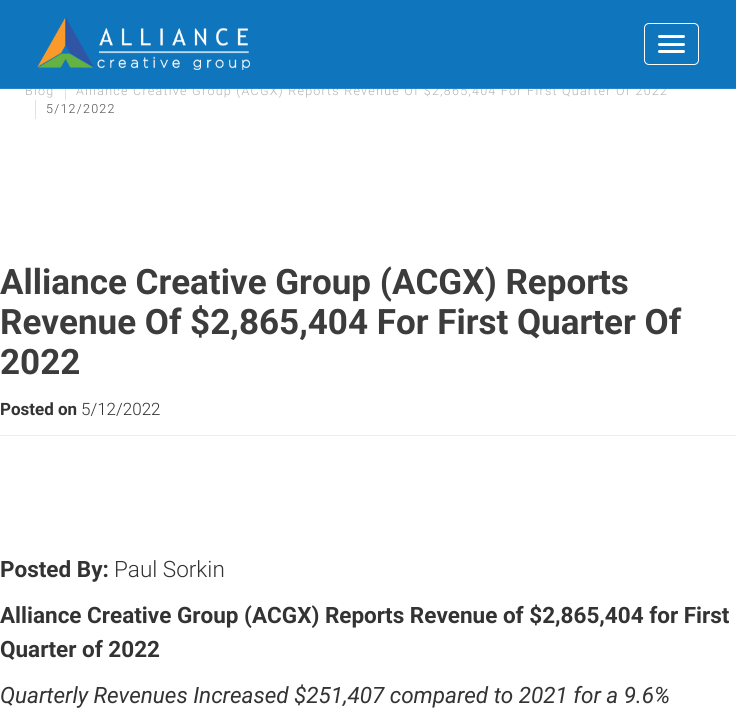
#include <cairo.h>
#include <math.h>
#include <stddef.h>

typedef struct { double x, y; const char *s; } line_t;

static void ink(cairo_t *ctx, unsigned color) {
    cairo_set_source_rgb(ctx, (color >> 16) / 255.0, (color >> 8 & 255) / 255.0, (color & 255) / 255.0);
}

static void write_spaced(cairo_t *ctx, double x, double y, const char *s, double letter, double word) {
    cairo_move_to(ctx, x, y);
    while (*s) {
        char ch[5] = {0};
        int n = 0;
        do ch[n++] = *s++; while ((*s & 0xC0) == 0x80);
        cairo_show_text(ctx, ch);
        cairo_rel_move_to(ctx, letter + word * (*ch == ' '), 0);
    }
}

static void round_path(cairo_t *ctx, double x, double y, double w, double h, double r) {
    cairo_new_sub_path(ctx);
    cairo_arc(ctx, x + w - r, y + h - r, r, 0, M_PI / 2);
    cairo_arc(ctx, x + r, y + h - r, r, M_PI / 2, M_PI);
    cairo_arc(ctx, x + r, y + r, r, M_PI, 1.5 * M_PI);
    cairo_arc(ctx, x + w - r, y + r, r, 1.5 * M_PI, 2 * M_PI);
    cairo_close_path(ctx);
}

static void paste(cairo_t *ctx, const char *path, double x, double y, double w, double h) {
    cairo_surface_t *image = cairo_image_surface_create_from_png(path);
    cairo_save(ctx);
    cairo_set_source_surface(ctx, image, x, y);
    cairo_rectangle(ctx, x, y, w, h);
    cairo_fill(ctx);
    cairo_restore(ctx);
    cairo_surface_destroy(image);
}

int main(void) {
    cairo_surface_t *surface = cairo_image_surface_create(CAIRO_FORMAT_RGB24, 736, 723);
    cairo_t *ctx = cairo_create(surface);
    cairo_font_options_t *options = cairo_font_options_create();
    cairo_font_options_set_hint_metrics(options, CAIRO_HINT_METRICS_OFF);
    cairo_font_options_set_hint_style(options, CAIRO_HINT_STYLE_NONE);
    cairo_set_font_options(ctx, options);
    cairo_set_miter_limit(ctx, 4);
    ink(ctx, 0xFFFFFF);
    cairo_paint(ctx);
    cairo_select_font_face(ctx, "Roboto Light", CAIRO_FONT_SLANT_NORMAL, CAIRO_FONT_WEIGHT_NORMAL);
    cairo_set_font_size(ctx, 12.5);
    ink(ctx, 0xB2B2B2);
    write_spaced(ctx, 25, 95, "Blog", 1.25, 0);
    ink(ctx, 0xE1E1E1);
    cairo_rectangle(ctx, 65, 83, 1, 17);
    cairo_fill(ctx);
    ink(ctx, 0xB2B2B2);
    write_spaced(ctx, 76, 95, "Alliance Creative Group (ACGX) Reports Revenue Of $2,865,404 For First Quarter Of 2022", 1.25, 0);
    ink(ctx, 0x0F75BD);
    cairo_rectangle(ctx, 0, 0, 736, 88);
    cairo_fill(ctx);
    ink(ctx, 0x2783C4);
    cairo_rectangle(ctx, 0, 88, 736, 1);
    cairo_fill(ctx);
    paste(ctx, "media/1.png", 37, 17, 213, 53);
    round_path(ctx, 644.5, 23.5, 54, 41, 4.5);
    ink(ctx, 0xFFFFFF);
    cairo_set_line_width(ctx, 1);
    cairo_stroke(ctx);
    round_path(ctx, 658, 35, 27, 3, 1.5);
    cairo_fill(ctx);
    round_path(ctx, 658, 43, 27, 3, 1.5);
    cairo_fill(ctx);
    round_path(ctx, 658, 50, 27, 3, 1.5);
    cairo_fill(ctx);
    ink(ctx, 0xE1E1E1);
    cairo_rectangle(ctx, 35, 100, 1, 19);
    cairo_fill(ctx);
    ink(ctx, 0x4F4F4F);
    write_spaced(ctx, 46, 113, "5/12/2022", 1.25, 0);
    ink(ctx, 0xEEEEEE);
    cairo_rectangle(ctx, 0, 435, 736, 1);
    cairo_fill(ctx);
    cairo_select_font_face(ctx, "Roboto", CAIRO_FONT_SLANT_NORMAL, CAIRO_FONT_WEIGHT_BOLD);
    cairo_set_font_size(ctx, 35);
    ink(ctx, 0x3C3C3C);
    {
        static const line_t items[] = {
            {0, 294, "Alliance Creative Group (ACGX) Reports"},
            {0, 334, "Revenue Of $2,865,404 For First Quarter Of"},
            {0, 374, "2022"},
        };
        for (size_t i = 0; i < sizeof items / sizeof *items; i++) {
            cairo_move_to(ctx, items[i].x, items[i].y);
            cairo_show_text(ctx, items[i].s);
        }
    }
    cairo_set_font_size(ctx, 17);
    ink(ctx, 0x333333);
    cairo_move_to(ctx, 0, 415);
    cairo_show_text(ctx, "Posted on");
    cairo_select_font_face(ctx, "Roboto Light", CAIRO_FONT_SLANT_NORMAL, CAIRO_FONT_WEIGHT_NORMAL);
    cairo_move_to(ctx, 81, 415);
    cairo_show_text(ctx, "5/12/2022");
    cairo_select_font_face(ctx, "Roboto", CAIRO_FONT_SLANT_NORMAL, CAIRO_FONT_WEIGHT_BOLD);
    cairo_set_font_size(ctx, 22.5);
    cairo_move_to(ctx, 0, 577);
    cairo_show_text(ctx, "Posted By:");
    cairo_select_font_face(ctx, "Roboto Light", CAIRO_FONT_SLANT_NORMAL, CAIRO_FONT_WEIGHT_NORMAL);
    cairo_move_to(ctx, 114, 577);
    cairo_show_text(ctx, "Paul Sorkin");
    cairo_select_font_face(ctx, "Roboto", CAIRO_FONT_SLANT_NORMAL, CAIRO_FONT_WEIGHT_BOLD);
    cairo_move_to(ctx, 0, 623);
    cairo_show_text(ctx, "Alliance Creative Group (ACGX) Reports Revenue of $2,865,404 for First");
    cairo_move_to(ctx, 0, 657);
    cairo_show_text(ctx, "Quarter of 2022");
    cairo_select_font_face(ctx, "Roboto", CAIRO_FONT_SLANT_ITALIC, CAIRO_FONT_WEIGHT_NORMAL);
    cairo_move_to(ctx, 0, 703);
    cairo_show_text(ctx, "Quarterly Revenues Increased $251,407 compared to 2021 for a 9.6%");
    cairo_surface_write_to_png(surface, "image.png");
    cairo_font_options_destroy(options);
    cairo_destroy(ctx);
    cairo_surface_destroy(surface);
    return 0;
}
